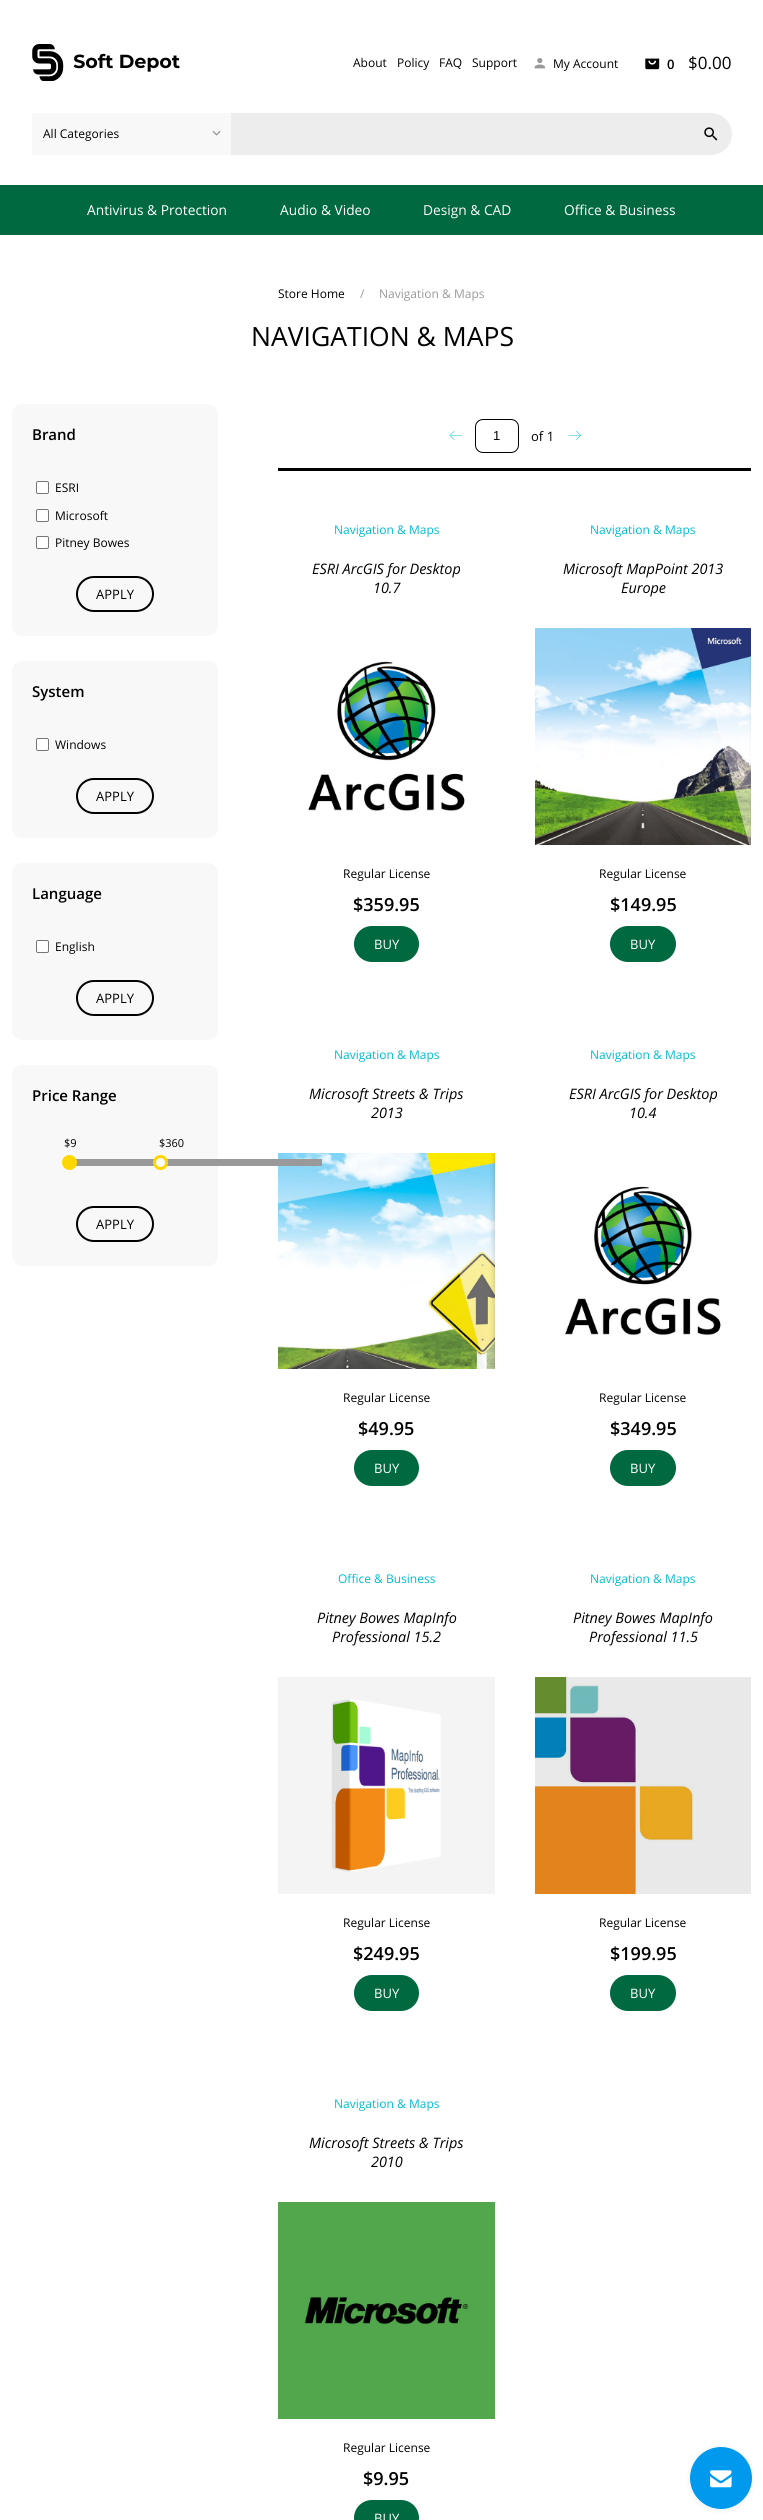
#include <cairo.h>
#include <math.h>
#include <stddef.h>

typedef struct { double x, y; const char *s; } line_t;

static void ink(cairo_t *ctx, unsigned color) {
    cairo_set_source_rgb(ctx, (color >> 16) / 255.0, (color >> 8 & 255) / 255.0, (color & 255) / 255.0);
}

static void round_path(cairo_t *ctx, double x, double y, double w, double h, double r) {
    cairo_new_sub_path(ctx);
    cairo_arc(ctx, x + w - r, y + h - r, r, 0, M_PI / 2);
    cairo_arc(ctx, x + r, y + h - r, r, M_PI / 2, M_PI);
    cairo_arc(ctx, x + r, y + r, r, M_PI, 1.5 * M_PI);
    cairo_arc(ctx, x + w - r, y + r, r, 1.5 * M_PI, 2 * M_PI);
    cairo_close_path(ctx);
}

static void blur_box(cairo_t *ctx, double x, double y, double w, double h, double r, double blur, double alpha) {
    cairo_push_group_with_content(ctx, CAIRO_CONTENT_ALPHA);
    cairo_set_operator(ctx, CAIRO_OPERATOR_SOURCE);
    for (int i = 15; i >= -15 && fmin(w, h) + blur * i / 3 > 0; i -= 2) {
        double e = blur * i / 6;
        cairo_set_source_rgba(ctx, 0, 0, 0, alpha * erfc((i - 1) / 8.5) / 2);
        round_path(ctx, x - e, y - e, w + 2 * e, h + 2 * e, fmax(0, fmin(r + e + blur * .6, fmin(w, h) / 2 + e)));
        cairo_fill(ctx);
    }
    cairo_pattern_t *soft = cairo_pop_group(ctx);
    cairo_mask(ctx, soft);
    cairo_pattern_destroy(soft);
}

static void paste(cairo_t *ctx, const char *path, double x, double y, double w, double h) {
    cairo_surface_t *image = cairo_image_surface_create_from_png(path);
    cairo_save(ctx);
    cairo_set_source_surface(ctx, image, x, y);
    cairo_rectangle(ctx, x, y, w, h);
    cairo_fill(ctx);
    cairo_restore(ctx);
    cairo_surface_destroy(image);
}

int main(void) {
    cairo_surface_t *surface = cairo_image_surface_create(CAIRO_FORMAT_RGB24, 763, 2520);
    cairo_t *ctx = cairo_create(surface);
    cairo_font_options_t *options = cairo_font_options_create();
    cairo_font_options_set_hint_metrics(options, CAIRO_HINT_METRICS_OFF);
    cairo_font_options_set_hint_style(options, CAIRO_HINT_STYLE_NONE);
    cairo_set_font_options(ctx, options);
    cairo_set_miter_limit(ctx, 4);
    ink(ctx, 0xFFFFFF);
    cairo_paint(ctx);
    paste(ctx, "media/1.png", 32, 44, 148, 37);
    cairo_select_font_face(ctx, "Open Sans", CAIRO_FONT_SLANT_NORMAL, CAIRO_FONT_WEIGHT_NORMAL);
    cairo_set_font_size(ctx, 12);
    ink(ctx, 0x000000);
    {
        static const line_t items[] = {
            {353, 67, "About"},
            {397, 67, "Policy"},
            {439, 67, "FAQ"},
            {472, 67, "Support"},
        };
        for (size_t i = 0; i < sizeof items / sizeof *items; i++) {
            cairo_move_to(ctx, items[i].x, items[i].y);
            cairo_show_text(ctx, items[i].s);
        }
    }
    paste(ctx, "media/2.png", 534, 58, 11, 11);
    cairo_move_to(ctx, 553, 68);
    cairo_show_text(ctx, "My Account");
    paste(ctx, "media/3.png", 645, 58, 15, 12);
    cairo_select_font_face(ctx, "Open Sans SemiBold", CAIRO_FONT_SLANT_NORMAL, CAIRO_FONT_WEIGHT_NORMAL);
    cairo_set_font_size(ctx, 13);
    cairo_move_to(ctx, 667, 69);
    cairo_show_text(ctx, "0");
    cairo_select_font_face(ctx, "Open Sans", CAIRO_FONT_SLANT_NORMAL, CAIRO_FONT_WEIGHT_NORMAL);
    cairo_set_font_size(ctx, 17);
    cairo_move_to(ctx, 688, 69);
    cairo_show_text(ctx, "$0.00");
    ink(ctx, 0xF8F8F8);
    cairo_rectangle(ctx, 32, 113, 199, 42);
    cairo_fill(ctx);
    cairo_set_font_size(ctx, 12);
    ink(ctx, 0x000000);
    cairo_move_to(ctx, 43, 138);
    cairo_show_text(ctx, "All Categories");
    paste(ctx, "media/4.png", 212, 130, 9, 6);
    ink(ctx, 0xEDEDED);
    cairo_rectangle(ctx, 231, 113, 459, 42);
    cairo_fill(ctx);
    cairo_new_path(ctx);
    cairo_move_to(ctx, 690, 113);
    cairo_line_to(ctx, 711, 113);
    cairo_curve_to(ctx, 722.5, 113, 732, 122.5, 732, 134);
    cairo_curve_to(ctx, 732, 145.5, 722.5, 155, 711, 155);
    cairo_line_to(ctx, 690, 155);
    cairo_close_path(ctx);
    cairo_fill(ctx);
    paste(ctx, "media/5.png", 704, 127, 14, 14);
    ink(ctx, 0x006940);
    cairo_rectangle(ctx, 0, 185, 763, 50);
    cairo_fill(ctx);
    cairo_set_font_size(ctx, 13.75);
    ink(ctx, 0xFFFFFF);
    {
        static const line_t items[] = {
            {87, 215, "Antivirus & Protection"},
            {280, 215, "Audio & Video"},
            {423, 215, "Design & CAD"},
            {564, 215, "Office & Business"},
        };
        for (size_t i = 0; i < sizeof items / sizeof *items; i++) {
            cairo_move_to(ctx, items[i].x, items[i].y);
            cairo_show_text(ctx, items[i].s);
        }
    }
    cairo_set_font_size(ctx, 12);
    ink(ctx, 0x000000);
    cairo_move_to(ctx, 278, 298);
    cairo_show_text(ctx, "Store Home");
    ink(ctx, 0x999999);
    cairo_move_to(ctx, 360, 298);
    cairo_show_text(ctx, "/");
    cairo_move_to(ctx, 379, 298);
    cairo_show_text(ctx, "Navigation & Maps");
    cairo_set_font_size(ctx, 26.5);
    ink(ctx, 0x000000);
    cairo_move_to(ctx, 251, 346);
    cairo_show_text(ctx, "NAVIGATION & MAPS");
    ink(ctx, 0xF8F8F8);
    round_path(ctx, 12, 404, 206, 232, 10);
    cairo_fill(ctx);
    cairo_select_font_face(ctx, "Open Sans SemiBold", CAIRO_FONT_SLANT_NORMAL, CAIRO_FONT_WEIGHT_NORMAL);
    cairo_set_font_size(ctx, 15);
    ink(ctx, 0x000000);
    cairo_move_to(ctx, 32, 440);
    cairo_show_text(ctx, "Brand");
    ink(ctx, 0xFFFFFF);
    round_path(ctx, 36.5, 481.5, 12, 12, 1.5);
    cairo_fill_preserve(ctx);
    ink(ctx, 0x767676);
    cairo_set_line_width(ctx, 1);
    cairo_stroke(ctx);
    cairo_select_font_face(ctx, "Open Sans", CAIRO_FONT_SLANT_NORMAL, CAIRO_FONT_WEIGHT_NORMAL);
    cairo_set_font_size(ctx, 12);
    ink(ctx, 0x000000);
    cairo_move_to(ctx, 55, 492);
    cairo_show_text(ctx, "ESRI");
    ink(ctx, 0xFFFFFF);
    round_path(ctx, 36.5, 509.5, 12, 12, 1.5);
    cairo_fill_preserve(ctx);
    ink(ctx, 0x767676);
    cairo_stroke(ctx);
    ink(ctx, 0x000000);
    cairo_move_to(ctx, 55, 520);
    cairo_show_text(ctx, "Microsoft");
    ink(ctx, 0xFFFFFF);
    round_path(ctx, 36.5, 536.5, 12, 12, 1.5);
    cairo_fill_preserve(ctx);
    ink(ctx, 0x767676);
    cairo_stroke(ctx);
    ink(ctx, 0x000000);
    cairo_move_to(ctx, 55, 547);
    cairo_show_text(ctx, "Pitney Bowes");
    round_path(ctx, 77, 577, 76, 34, 17);
    cairo_set_line_width(ctx, 2);
    cairo_stroke(ctx);
    cairo_set_font_size(ctx, 13);
    cairo_move_to(ctx, 96, 599);
    cairo_show_text(ctx, "APPLY");
    ink(ctx, 0xF8F8F8);
    round_path(ctx, 12, 661, 206, 177, 10);
    cairo_fill(ctx);
    cairo_select_font_face(ctx, "Open Sans SemiBold", CAIRO_FONT_SLANT_NORMAL, CAIRO_FONT_WEIGHT_NORMAL);
    cairo_set_font_size(ctx, 15);
    ink(ctx, 0x000000);
    cairo_move_to(ctx, 32, 697);
    cairo_show_text(ctx, "System");
    ink(ctx, 0xFFFFFF);
    round_path(ctx, 36.5, 738.5, 12, 12, 1.5);
    cairo_fill_preserve(ctx);
    ink(ctx, 0x767676);
    cairo_set_line_width(ctx, 1);
    cairo_stroke(ctx);
    cairo_select_font_face(ctx, "Open Sans", CAIRO_FONT_SLANT_NORMAL, CAIRO_FONT_WEIGHT_NORMAL);
    cairo_set_font_size(ctx, 12);
    ink(ctx, 0x000000);
    cairo_move_to(ctx, 55, 749);
    cairo_show_text(ctx, "Windows");
    round_path(ctx, 77, 779, 76, 34, 17);
    cairo_set_line_width(ctx, 2);
    cairo_stroke(ctx);
    cairo_set_font_size(ctx, 13);
    cairo_move_to(ctx, 96, 801);
    cairo_show_text(ctx, "APPLY");
    ink(ctx, 0xF8F8F8);
    round_path(ctx, 12, 863, 206, 177, 10);
    cairo_fill(ctx);
    cairo_select_font_face(ctx, "Open Sans SemiBold", CAIRO_FONT_SLANT_NORMAL, CAIRO_FONT_WEIGHT_NORMAL);
    cairo_set_font_size(ctx, 15);
    ink(ctx, 0x000000);
    cairo_move_to(ctx, 32, 899);
    cairo_show_text(ctx, "Language");
    ink(ctx, 0xFFFFFF);
    round_path(ctx, 36.5, 940.5, 12, 12, 1.5);
    cairo_fill_preserve(ctx);
    ink(ctx, 0x767676);
    cairo_set_line_width(ctx, 1);
    cairo_stroke(ctx);
    cairo_select_font_face(ctx, "Open Sans", CAIRO_FONT_SLANT_NORMAL, CAIRO_FONT_WEIGHT_NORMAL);
    cairo_set_font_size(ctx, 12);
    ink(ctx, 0x000000);
    cairo_move_to(ctx, 55, 951);
    cairo_show_text(ctx, "English");
    round_path(ctx, 77, 981, 76, 34, 17);
    cairo_set_line_width(ctx, 2);
    cairo_stroke(ctx);
    cairo_set_font_size(ctx, 13);
    cairo_move_to(ctx, 96, 1003);
    cairo_show_text(ctx, "APPLY");
    ink(ctx, 0xF8F8F8);
    round_path(ctx, 12, 1065, 206, 201, 10);
    cairo_fill(ctx);
    cairo_select_font_face(ctx, "Open Sans SemiBold", CAIRO_FONT_SLANT_NORMAL, CAIRO_FONT_WEIGHT_NORMAL);
    cairo_set_font_size(ctx, 15);
    ink(ctx, 0x000000);
    cairo_move_to(ctx, 32, 1101);
    cairo_show_text(ctx, "Price Range");
    cairo_select_font_face(ctx, "Open Sans", CAIRO_FONT_SLANT_NORMAL, CAIRO_FONT_WEIGHT_NORMAL);
    cairo_set_font_size(ctx, 11);
    cairo_move_to(ctx, 64, 1147);
    cairo_show_text(ctx, "$9");
    cairo_move_to(ctx, 159, 1147);
    cairo_show_text(ctx, "$360");
    paste(ctx, "media/10.png", 278, 1153, 217, 216);
    ink(ctx, 0x999999);
    cairo_rectangle(ctx, 72, 1159, 250, 7);
    cairo_fill(ctx);
    ink(ctx, 0xFED700);
    cairo_arc(ctx, 69.5, 1162.5, 7.5, 0, 2 * M_PI);
    cairo_fill(ctx);
    ink(ctx, 0xFFFFFF);
    cairo_arc(ctx, 160.5, 1162.5, 6, 0, 2 * M_PI);
    cairo_fill_preserve(ctx);
    ink(ctx, 0xFED700);
    cairo_set_line_width(ctx, 3);
    cairo_stroke(ctx);
    round_path(ctx, 77, 1207, 76, 34, 17);
    ink(ctx, 0x000000);
    cairo_set_line_width(ctx, 2);
    cairo_stroke(ctx);
    cairo_set_font_size(ctx, 13);
    cairo_move_to(ctx, 96, 1229);
    cairo_show_text(ctx, "APPLY");
    cairo_rectangle(ctx, 278, 468, 473, 3);
    cairo_fill(ctx);
    paste(ctx, "media/6.png", 449, 430, 14, 10);
    round_path(ctx, 475.5, 419.5, 43, 33, 7.5);
    cairo_set_line_width(ctx, 1);
    cairo_stroke(ctx);
    cairo_select_font_face(ctx, "Liberation Sans", CAIRO_FONT_SLANT_NORMAL, CAIRO_FONT_WEIGHT_NORMAL);
    cairo_move_to(ctx, 493, 440);
    cairo_show_text(ctx, "1");
    cairo_select_font_face(ctx, "Open Sans", CAIRO_FONT_SLANT_NORMAL, CAIRO_FONT_WEIGHT_NORMAL);
    cairo_move_to(ctx, 531, 441);
    cairo_show_text(ctx, "of 1");
    paste(ctx, "media/7.png", 568, 430, 13, 10);
    cairo_set_font_size(ctx, 12);
    ink(ctx, 0x00BCD4);
    cairo_move_to(ctx, 334, 534);
    cairo_show_text(ctx, "Navigation & Maps");
    cairo_select_font_face(ctx, "Open Sans", CAIRO_FONT_SLANT_ITALIC, CAIRO_FONT_WEIGHT_NORMAL);
    cairo_set_font_size(ctx, 14.4);
    ink(ctx, 0x000000);
    cairo_move_to(ctx, 312, 574);
    cairo_show_text(ctx, "ESRI ArcGIS for Desktop");
    cairo_move_to(ctx, 373, 593);
    cairo_show_text(ctx, "10.7");
    paste(ctx, "media/8.png", 278, 628, 217, 217);
    cairo_select_font_face(ctx, "Open Sans", CAIRO_FONT_SLANT_NORMAL, CAIRO_FONT_WEIGHT_NORMAL);
    cairo_set_font_size(ctx, 12);
    cairo_move_to(ctx, 343, 878);
    cairo_show_text(ctx, "Regular License");
    cairo_select_font_face(ctx, "Open Sans SemiBold", CAIRO_FONT_SLANT_NORMAL, CAIRO_FONT_WEIGHT_NORMAL);
    cairo_set_font_size(ctx, 18);
    cairo_move_to(ctx, 353, 911);
    cairo_show_text(ctx, "$359.95");
    ink(ctx, 0x006940);
    round_path(ctx, 354, 926, 65, 36, 18);
    cairo_fill(ctx);
    cairo_select_font_face(ctx, "Open Sans", CAIRO_FONT_SLANT_NORMAL, CAIRO_FONT_WEIGHT_NORMAL);
    cairo_set_font_size(ctx, 13);
    ink(ctx, 0xFFFFFF);
    cairo_move_to(ctx, 374, 949);
    cairo_show_text(ctx, "BUY");
    cairo_set_font_size(ctx, 12);
    ink(ctx, 0x00BCD4);
    cairo_move_to(ctx, 590, 534);
    cairo_show_text(ctx, "Navigation & Maps");
    cairo_select_font_face(ctx, "Open Sans", CAIRO_FONT_SLANT_ITALIC, CAIRO_FONT_WEIGHT_NORMAL);
    cairo_set_font_size(ctx, 14.4);
    ink(ctx, 0x000000);
    cairo_move_to(ctx, 563, 574);
    cairo_show_text(ctx, "Microsoft MapPoint 2013");
    cairo_move_to(ctx, 621, 593);
    cairo_show_text(ctx, "Europe");
    paste(ctx, "media/9.png", 535, 628, 216, 217);
    cairo_select_font_face(ctx, "Open Sans", CAIRO_FONT_SLANT_NORMAL, CAIRO_FONT_WEIGHT_NORMAL);
    cairo_set_font_size(ctx, 12);
    cairo_move_to(ctx, 599, 878);
    cairo_show_text(ctx, "Regular License");
    cairo_select_font_face(ctx, "Open Sans SemiBold", CAIRO_FONT_SLANT_NORMAL, CAIRO_FONT_WEIGHT_NORMAL);
    cairo_set_font_size(ctx, 18);
    cairo_move_to(ctx, 610, 911);
    cairo_show_text(ctx, "$149.95");
    ink(ctx, 0x006940);
    round_path(ctx, 610, 926, 66, 36, 18);
    cairo_fill(ctx);
    cairo_select_font_face(ctx, "Open Sans", CAIRO_FONT_SLANT_NORMAL, CAIRO_FONT_WEIGHT_NORMAL);
    cairo_set_font_size(ctx, 13);
    ink(ctx, 0xFFFFFF);
    cairo_move_to(ctx, 630, 949);
    cairo_show_text(ctx, "BUY");
    cairo_set_font_size(ctx, 12);
    ink(ctx, 0x00BCD4);
    cairo_move_to(ctx, 334, 1059);
    cairo_show_text(ctx, "Navigation & Maps");
    cairo_select_font_face(ctx, "Open Sans", CAIRO_FONT_SLANT_ITALIC, CAIRO_FONT_WEIGHT_NORMAL);
    cairo_set_font_size(ctx, 14.4);
    ink(ctx, 0x000000);
    cairo_move_to(ctx, 309, 1099);
    cairo_show_text(ctx, "Microsoft Streets & Trips");
    cairo_move_to(ctx, 371, 1118);
    cairo_show_text(ctx, "2013");
    cairo_select_font_face(ctx, "Open Sans", CAIRO_FONT_SLANT_NORMAL, CAIRO_FONT_WEIGHT_NORMAL);
    cairo_set_font_size(ctx, 12);
    cairo_move_to(ctx, 343, 1402);
    cairo_show_text(ctx, "Regular License");
    cairo_select_font_face(ctx, "Open Sans SemiBold", CAIRO_FONT_SLANT_NORMAL, CAIRO_FONT_WEIGHT_NORMAL);
    cairo_set_font_size(ctx, 18);
    cairo_move_to(ctx, 358, 1435);
    cairo_show_text(ctx, "$49.95");
    ink(ctx, 0x006940);
    round_path(ctx, 354, 1450, 65, 36, 18);
    cairo_fill(ctx);
    cairo_select_font_face(ctx, "Open Sans", CAIRO_FONT_SLANT_NORMAL, CAIRO_FONT_WEIGHT_NORMAL);
    cairo_set_font_size(ctx, 13);
    ink(ctx, 0xFFFFFF);
    cairo_move_to(ctx, 374, 1473);
    cairo_show_text(ctx, "BUY");
    cairo_set_font_size(ctx, 12);
    ink(ctx, 0x00BCD4);
    cairo_move_to(ctx, 590, 1059);
    cairo_show_text(ctx, "Navigation & Maps");
    cairo_select_font_face(ctx, "Open Sans", CAIRO_FONT_SLANT_ITALIC, CAIRO_FONT_WEIGHT_NORMAL);
    cairo_set_font_size(ctx, 14.4);
    ink(ctx, 0x000000);
    cairo_move_to(ctx, 569, 1099);
    cairo_show_text(ctx, "ESRI ArcGIS for Desktop");
    cairo_move_to(ctx, 629, 1118);
    cairo_show_text(ctx, "10.4");
    paste(ctx, "media/11.png", 535, 1153, 216, 216);
    cairo_select_font_face(ctx, "Open Sans", CAIRO_FONT_SLANT_NORMAL, CAIRO_FONT_WEIGHT_NORMAL);
    cairo_set_font_size(ctx, 12);
    cairo_move_to(ctx, 599, 1402);
    cairo_show_text(ctx, "Regular License");
    cairo_select_font_face(ctx, "Open Sans SemiBold", CAIRO_FONT_SLANT_NORMAL, CAIRO_FONT_WEIGHT_NORMAL);
    cairo_set_font_size(ctx, 18);
    cairo_move_to(ctx, 610, 1435);
    cairo_show_text(ctx, "$349.95");
    ink(ctx, 0x006940);
    round_path(ctx, 610, 1450, 66, 36, 18);
    cairo_fill(ctx);
    cairo_select_font_face(ctx, "Open Sans", CAIRO_FONT_SLANT_NORMAL, CAIRO_FONT_WEIGHT_NORMAL);
    cairo_set_font_size(ctx, 13);
    ink(ctx, 0xFFFFFF);
    cairo_move_to(ctx, 630, 1473);
    cairo_show_text(ctx, "BUY");
    cairo_set_font_size(ctx, 12);
    ink(ctx, 0x00BCD4);
    cairo_move_to(ctx, 338, 1583);
    cairo_show_text(ctx, "Office & Business");
    cairo_select_font_face(ctx, "Open Sans", CAIRO_FONT_SLANT_ITALIC, CAIRO_FONT_WEIGHT_NORMAL);
    cairo_set_font_size(ctx, 14.4);
    ink(ctx, 0x000000);
    cairo_move_to(ctx, 317, 1623);
    cairo_show_text(ctx, "Pitney Bowes MapInfo");
    cairo_move_to(ctx, 332, 1642);
    cairo_show_text(ctx, "Professional 15.2");
    ink(ctx, 0xF4F4F4);
    cairo_rectangle(ctx, 278, 1677, 217, 217);
    cairo_fill(ctx);
    paste(ctx, "media/12.png", 331, 1699, 110, 173);
    cairo_select_font_face(ctx, "Open Sans", CAIRO_FONT_SLANT_NORMAL, CAIRO_FONT_WEIGHT_NORMAL);
    cairo_set_font_size(ctx, 12);
    ink(ctx, 0x000000);
    cairo_move_to(ctx, 343, 1927);
    cairo_show_text(ctx, "Regular License");
    cairo_select_font_face(ctx, "Open Sans SemiBold", CAIRO_FONT_SLANT_NORMAL, CAIRO_FONT_WEIGHT_NORMAL);
    cairo_set_font_size(ctx, 18);
    cairo_move_to(ctx, 353, 1960);
    cairo_show_text(ctx, "$249.95");
    ink(ctx, 0x006940);
    round_path(ctx, 354, 1975, 65, 36, 18);
    cairo_fill(ctx);
    cairo_select_font_face(ctx, "Open Sans", CAIRO_FONT_SLANT_NORMAL, CAIRO_FONT_WEIGHT_NORMAL);
    cairo_set_font_size(ctx, 13);
    ink(ctx, 0xFFFFFF);
    cairo_move_to(ctx, 374, 1998);
    cairo_show_text(ctx, "BUY");
    cairo_set_font_size(ctx, 12);
    ink(ctx, 0x00BCD4);
    cairo_move_to(ctx, 590, 1583);
    cairo_show_text(ctx, "Navigation & Maps");
    cairo_select_font_face(ctx, "Open Sans", CAIRO_FONT_SLANT_ITALIC, CAIRO_FONT_WEIGHT_NORMAL);
    cairo_set_font_size(ctx, 14.4);
    ink(ctx, 0x000000);
    cairo_move_to(ctx, 573, 1623);
    cairo_show_text(ctx, "Pitney Bowes MapInfo");
    cairo_move_to(ctx, 589, 1642);
    cairo_show_text(ctx, "Professional 11.5");
    paste(ctx, "media/13.png", 535, 1677, 216, 217);
    cairo_select_font_face(ctx, "Open Sans", CAIRO_FONT_SLANT_NORMAL, CAIRO_FONT_WEIGHT_NORMAL);
    cairo_set_font_size(ctx, 12);
    cairo_move_to(ctx, 599, 1927);
    cairo_show_text(ctx, "Regular License");
    cairo_select_font_face(ctx, "Open Sans SemiBold", CAIRO_FONT_SLANT_NORMAL, CAIRO_FONT_WEIGHT_NORMAL);
    cairo_set_font_size(ctx, 18);
    cairo_move_to(ctx, 610, 1960);
    cairo_show_text(ctx, "$199.95");
    ink(ctx, 0x006940);
    round_path(ctx, 610, 1975, 66, 36, 18);
    cairo_fill(ctx);
    cairo_select_font_face(ctx, "Open Sans", CAIRO_FONT_SLANT_NORMAL, CAIRO_FONT_WEIGHT_NORMAL);
    cairo_set_font_size(ctx, 13);
    ink(ctx, 0xFFFFFF);
    cairo_move_to(ctx, 630, 1998);
    cairo_show_text(ctx, "BUY");
    cairo_set_font_size(ctx, 12);
    ink(ctx, 0x00BCD4);
    cairo_move_to(ctx, 334, 2108);
    cairo_show_text(ctx, "Navigation & Maps");
    cairo_select_font_face(ctx, "Open Sans", CAIRO_FONT_SLANT_ITALIC, CAIRO_FONT_WEIGHT_NORMAL);
    cairo_set_font_size(ctx, 14.4);
    ink(ctx, 0x000000);
    cairo_move_to(ctx, 309, 2148);
    cairo_show_text(ctx, "Microsoft Streets & Trips");
    cairo_move_to(ctx, 371, 2167);
    cairo_show_text(ctx, "2010");
    paste(ctx, "media/14.png", 278, 2202, 217, 217);
    cairo_select_font_face(ctx, "Open Sans", CAIRO_FONT_SLANT_NORMAL, CAIRO_FONT_WEIGHT_NORMAL);
    cairo_set_font_size(ctx, 12);
    cairo_move_to(ctx, 343, 2452);
    cairo_show_text(ctx, "Regular License");
    cairo_select_font_face(ctx, "Open Sans SemiBold", CAIRO_FONT_SLANT_NORMAL, CAIRO_FONT_WEIGHT_NORMAL);
    cairo_set_font_size(ctx, 18);
    cairo_move_to(ctx, 363, 2485);
    cairo_show_text(ctx, "$9.95");
    ink(ctx, 0x006940);
    round_path(ctx, 354, 2500, 65, 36, 18);
    cairo_fill(ctx);
    cairo_select_font_face(ctx, "Open Sans", CAIRO_FONT_SLANT_NORMAL, CAIRO_FONT_WEIGHT_NORMAL);
    cairo_set_font_size(ctx, 13);
    ink(ctx, 0xFFFFFF);
    cairo_move_to(ctx, 374, 2523);
    cairo_show_text(ctx, "BUY");
    ink(ctx, 0x000000);
    blur_box(ctx, 689, 2447, 64, 64, 32, 2.5, 0.06);
    ink(ctx, 0x0099EE);
    cairo_arc(ctx, 721, 2478, 31.5, 0, 2 * M_PI);
    cairo_fill_preserve(ctx);
    ink(ctx, 0xFFFFFF);
    cairo_stroke(ctx);
    paste(ctx, "media/15.png", 710, 2470, 22, 18);
    cairo_surface_write_to_png(surface, "image.png");
    cairo_font_options_destroy(options);
    cairo_destroy(ctx);
    cairo_surface_destroy(surface);
    return 0;
}
